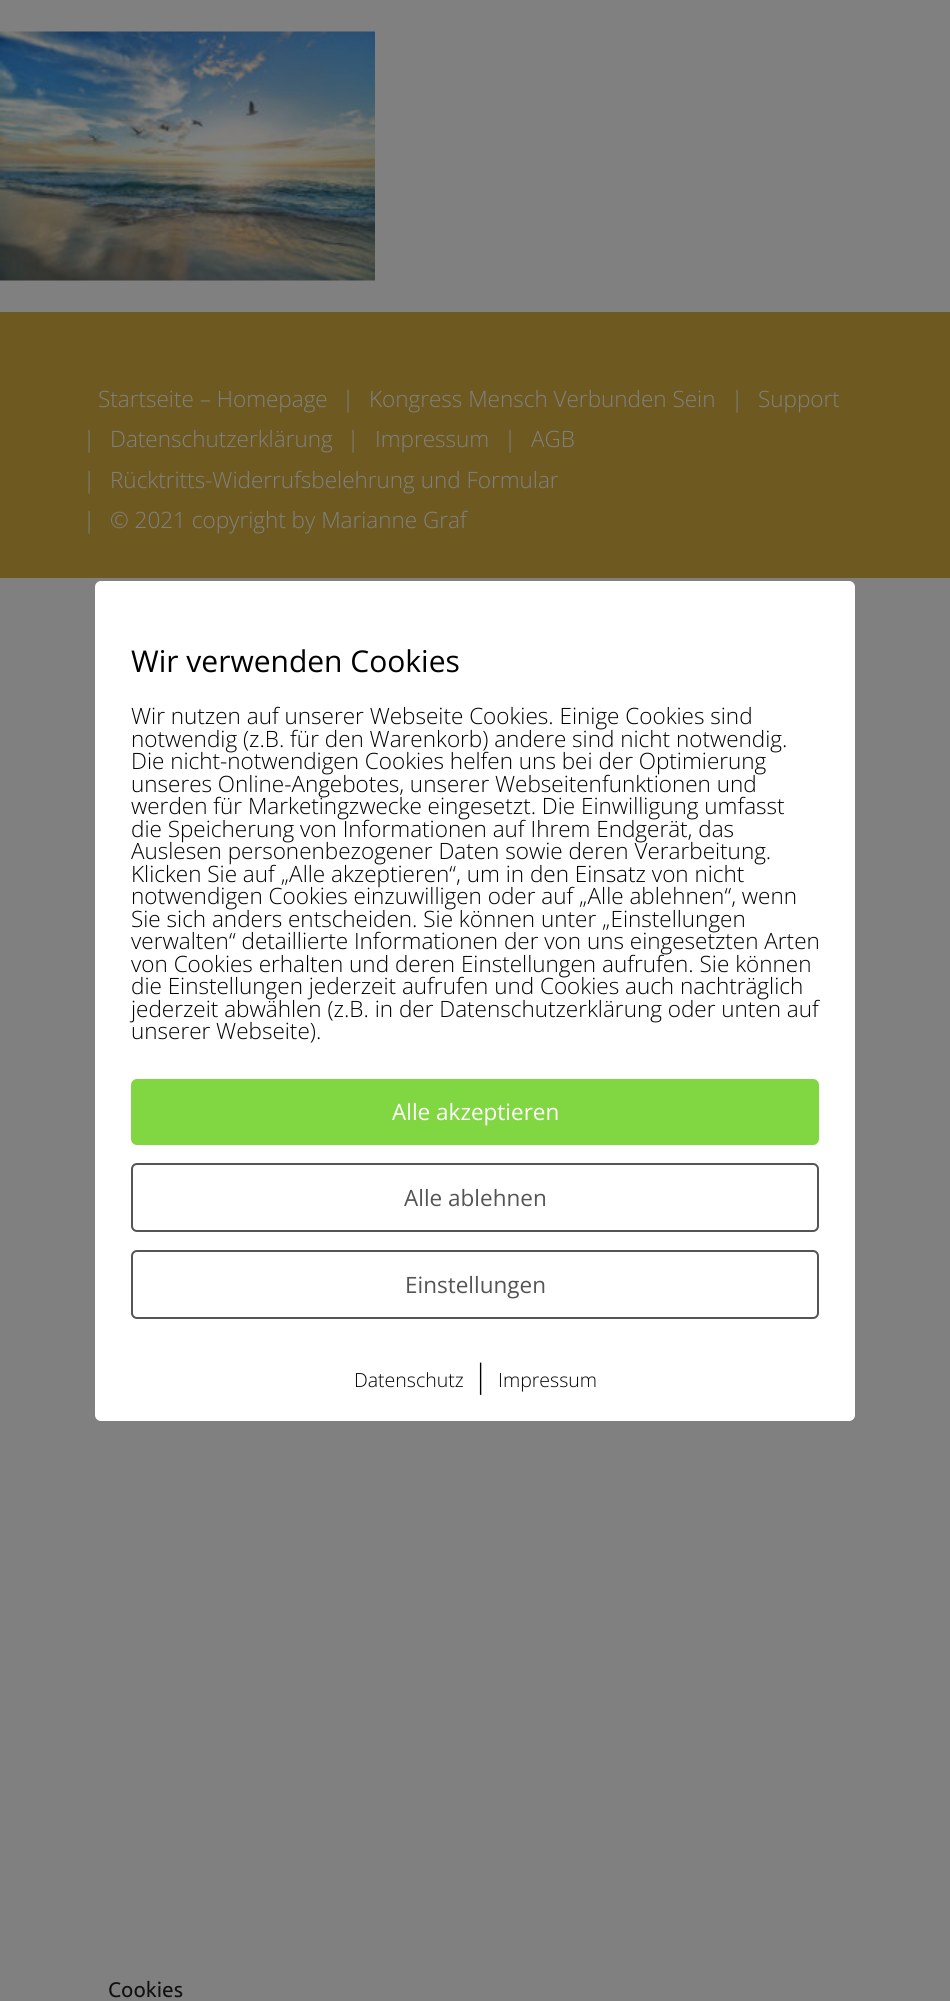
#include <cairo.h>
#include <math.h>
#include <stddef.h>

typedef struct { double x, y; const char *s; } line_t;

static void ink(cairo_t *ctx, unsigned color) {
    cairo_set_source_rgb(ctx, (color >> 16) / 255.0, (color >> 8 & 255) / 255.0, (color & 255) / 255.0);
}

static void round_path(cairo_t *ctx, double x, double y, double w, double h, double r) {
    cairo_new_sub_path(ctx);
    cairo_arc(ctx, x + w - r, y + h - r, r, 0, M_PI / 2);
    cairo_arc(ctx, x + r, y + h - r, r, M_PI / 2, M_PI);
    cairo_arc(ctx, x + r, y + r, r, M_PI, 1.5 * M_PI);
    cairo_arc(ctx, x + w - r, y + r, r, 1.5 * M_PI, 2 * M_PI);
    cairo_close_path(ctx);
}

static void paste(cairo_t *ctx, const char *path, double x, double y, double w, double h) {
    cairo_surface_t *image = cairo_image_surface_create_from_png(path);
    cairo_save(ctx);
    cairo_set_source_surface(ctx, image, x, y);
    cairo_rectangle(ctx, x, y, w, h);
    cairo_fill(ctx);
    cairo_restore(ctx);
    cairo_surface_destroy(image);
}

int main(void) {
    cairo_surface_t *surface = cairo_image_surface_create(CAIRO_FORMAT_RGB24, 950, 2001);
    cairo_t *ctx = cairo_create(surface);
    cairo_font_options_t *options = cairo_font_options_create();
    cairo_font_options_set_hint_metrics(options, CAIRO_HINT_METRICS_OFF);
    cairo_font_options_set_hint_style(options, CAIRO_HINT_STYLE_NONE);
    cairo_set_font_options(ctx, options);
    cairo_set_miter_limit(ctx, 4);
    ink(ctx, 0x808080);
    cairo_paint(ctx);
    paste(ctx, "media/1.png", 0, 31, 375, 250);
    ink(ctx, 0x6E5A21);
    cairo_rectangle(ctx, 0, 312, 950, 266);
    cairo_fill(ctx);
    cairo_select_font_face(ctx, "Open Sans Light", CAIRO_FONT_SLANT_NORMAL, CAIRO_FONT_WEIGHT_NORMAL);
    cairo_set_font_size(ctx, 22.5);
    ink(ctx, 0x808080);
    {
        static const line_t items[] = {
            {98, 407, "Startseite – Homepage"},
            {342, 407, "|"},
            {369, 407, "Kongress Mensch Verbunden Sein"},
            {731, 407, "|"},
            {758, 407, "Support"},
            {83, 447, "|"},
            {110, 447, "Datenschutzerklärung"},
            {347, 447, "|"},
            {375, 447, "Impressum"},
            {504, 447, "|"},
            {531, 447, "AGB"},
            {83, 488, "|"},
            {110, 488, "Rücktritts-Widerrufsbelehrung und Formular"},
            {83, 528, "|"},
            {110, 528, "© 2021 copyright by Marianne Graf"},
        };
        for (size_t i = 0; i < sizeof items / sizeof *items; i++) {
            cairo_move_to(ctx, items[i].x, items[i].y);
            cairo_show_text(ctx, items[i].s);
        }
    }
    ink(ctx, 0xFFFFFF);
    round_path(ctx, 95, 581, 760, 840, 6);
    cairo_fill(ctx);
    cairo_select_font_face(ctx, "Open Sans", CAIRO_FONT_SLANT_NORMAL, CAIRO_FONT_WEIGHT_NORMAL);
    cairo_set_font_size(ctx, 30);
    ink(ctx, 0x000000);
    cairo_move_to(ctx, 131, 672);
    cairo_show_text(ctx, "Wir verwenden Cookies");
    cairo_select_font_face(ctx, "Open Sans Light", CAIRO_FONT_SLANT_NORMAL, CAIRO_FONT_WEIGHT_NORMAL);
    cairo_set_font_size(ctx, 22.5);
    {
        static const line_t items[] = {
            {131, 724, "Wir nutzen auf unserer Webseite Cookies. Einige Cookies sind"},
            {131, 747, "notwendig (z.B. für den Warenkorb) andere sind nicht notwendig."},
            {131, 769, "Die nicht-notwendigen Cookies helfen uns bei der Optimierung"},
            {131, 792, "unseres Online-Angebotes, unserer Webseitenfunktionen und"},
            {131, 814, "werden für Marketingzwecke eingesetzt. Die Einwilligung umfasst"},
            {131, 837, "die Speicherung von Informationen auf Ihrem Endgerät, das"},
            {131, 859, "Auslesen personenbezogener Daten sowie deren Verarbeitung."},
            {131, 882, "Klicken Sie auf „Alle akzeptieren“, um in den Einsatz von nicht"},
            {131, 904, "notwendigen Cookies einzuwilligen oder auf „Alle ablehnen“, wenn"},
            {131, 927, "Sie sich anders entscheiden. Sie können unter „Einstellungen"},
            {131, 949, "verwalten“ detaillierte Informationen der von uns eingesetzten Arten"},
            {131, 972, "von Cookies erhalten und deren Einstellungen aufrufen. Sie können"},
            {131, 994, "die Einstellungen jederzeit aufrufen und Cookies auch nachträglich"},
            {131, 1017, "jederzeit abwählen (z.B. in der Datenschutzerklärung oder unten auf"},
            {131, 1039, "unserer Webseite)."},
        };
        for (size_t i = 0; i < sizeof items / sizeof *items; i++) {
            cairo_move_to(ctx, items[i].x, items[i].y);
            cairo_show_text(ctx, items[i].s);
        }
    }
    ink(ctx, 0x81D742);
    round_path(ctx, 131, 1079, 688, 66, 6);
    cairo_fill(ctx);
    cairo_select_font_face(ctx, "Open Sans", CAIRO_FONT_SLANT_NORMAL, CAIRO_FONT_WEIGHT_NORMAL);
    ink(ctx, 0xFFFFFF);
    cairo_move_to(ctx, 392, 1120);
    cairo_show_text(ctx, "Alle akzeptieren");
    round_path(ctx, 132, 1164, 686, 67, 5);
    ink(ctx, 0x555555);
    cairo_stroke(ctx);
    cairo_move_to(ctx, 404, 1206);
    cairo_show_text(ctx, "Alle ablehnen");
    round_path(ctx, 132, 1251, 686, 67, 5);
    cairo_stroke(ctx);
    cairo_move_to(ctx, 405, 1293);
    cairo_show_text(ctx, "Einstellungen");
    cairo_select_font_face(ctx, "Open Sans Light", CAIRO_FONT_SLANT_NORMAL, CAIRO_FONT_WEIGHT_NORMAL);
    cairo_set_font_size(ctx, 19.5);
    ink(ctx, 0x000000);
    cairo_move_to(ctx, 354, 1387);
    cairo_show_text(ctx, "Datenschutz");
    cairo_set_font_size(ctx, 32);
    cairo_move_to(ctx, 472, 1387);
    cairo_show_text(ctx, "|");
    cairo_set_font_size(ctx, 19.5);
    cairo_move_to(ctx, 498, 1387);
    cairo_show_text(ctx, "Impressum");
    cairo_select_font_face(ctx, "Ubuntu", CAIRO_FONT_SLANT_NORMAL, CAIRO_FONT_WEIGHT_NORMAL);
    cairo_set_font_size(ctx, 21);
    ink(ctx, 0x111111);
    cairo_move_to(ctx, 108, 1997);
    cairo_show_text(ctx, "Cookies");
    cairo_surface_write_to_png(surface, "image.png");
    cairo_font_options_destroy(options);
    cairo_destroy(ctx);
    cairo_surface_destroy(surface);
    return 0;
}
